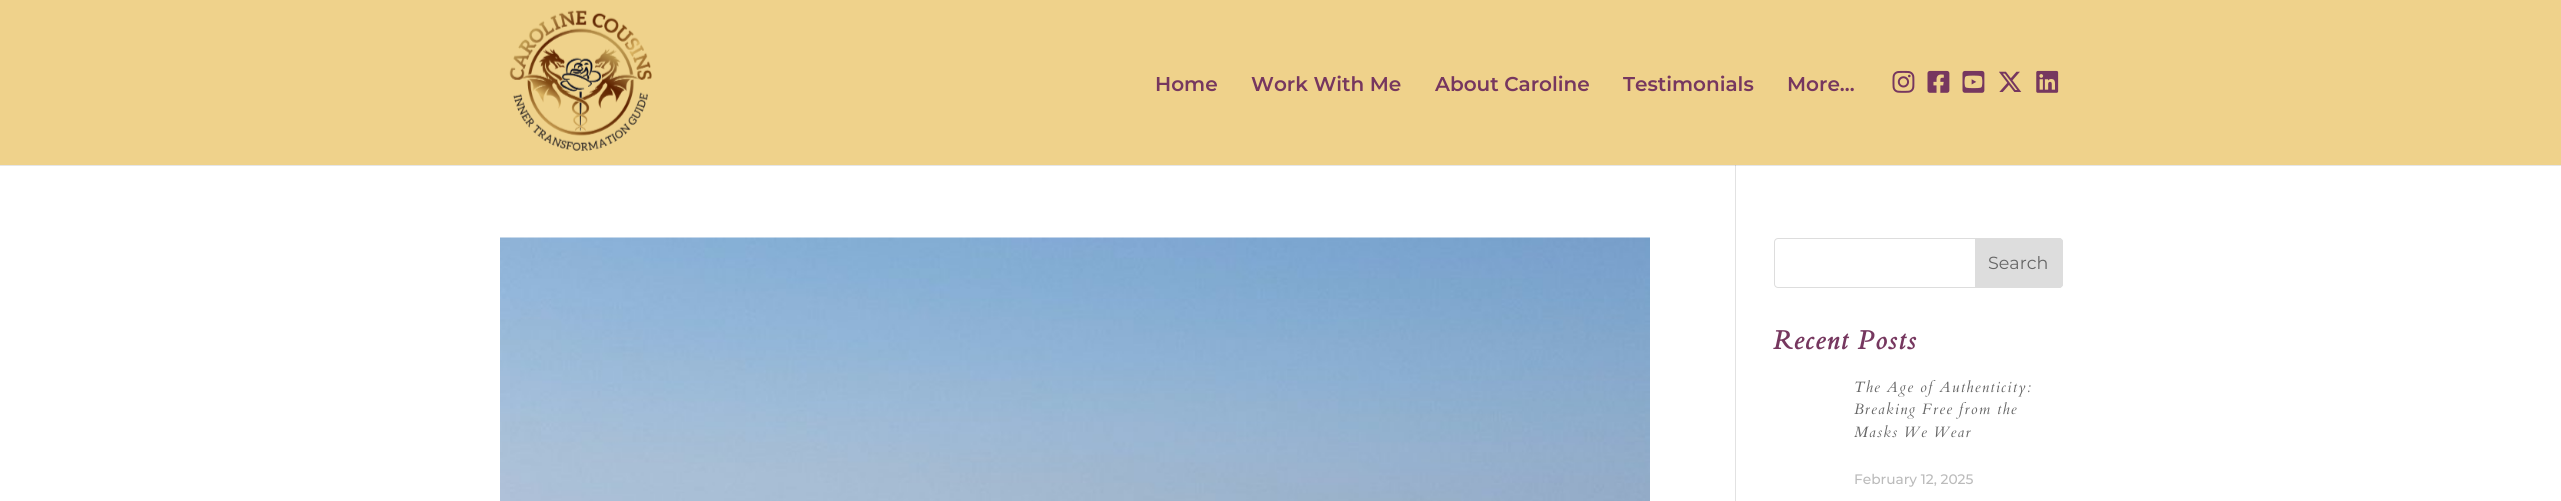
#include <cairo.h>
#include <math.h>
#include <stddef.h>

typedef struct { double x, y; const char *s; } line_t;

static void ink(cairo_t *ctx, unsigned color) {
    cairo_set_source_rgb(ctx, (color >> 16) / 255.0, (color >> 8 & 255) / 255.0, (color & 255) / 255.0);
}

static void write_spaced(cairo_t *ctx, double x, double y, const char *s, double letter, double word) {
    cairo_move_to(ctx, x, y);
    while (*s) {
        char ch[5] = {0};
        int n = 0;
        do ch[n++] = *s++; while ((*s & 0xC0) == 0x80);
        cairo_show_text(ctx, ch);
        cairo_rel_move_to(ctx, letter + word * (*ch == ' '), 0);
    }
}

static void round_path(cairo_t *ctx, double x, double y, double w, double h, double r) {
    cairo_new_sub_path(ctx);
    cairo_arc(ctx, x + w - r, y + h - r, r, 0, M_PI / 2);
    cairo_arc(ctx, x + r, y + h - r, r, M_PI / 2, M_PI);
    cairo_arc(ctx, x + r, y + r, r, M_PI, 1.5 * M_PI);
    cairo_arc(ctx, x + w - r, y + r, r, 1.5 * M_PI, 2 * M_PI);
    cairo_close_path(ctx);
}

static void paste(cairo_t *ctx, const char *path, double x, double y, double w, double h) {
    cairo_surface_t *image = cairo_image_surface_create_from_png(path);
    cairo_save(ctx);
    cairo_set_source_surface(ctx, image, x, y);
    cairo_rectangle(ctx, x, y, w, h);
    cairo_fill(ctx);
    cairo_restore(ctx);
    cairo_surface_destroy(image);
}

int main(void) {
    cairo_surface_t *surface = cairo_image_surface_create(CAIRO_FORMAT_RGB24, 2561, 501);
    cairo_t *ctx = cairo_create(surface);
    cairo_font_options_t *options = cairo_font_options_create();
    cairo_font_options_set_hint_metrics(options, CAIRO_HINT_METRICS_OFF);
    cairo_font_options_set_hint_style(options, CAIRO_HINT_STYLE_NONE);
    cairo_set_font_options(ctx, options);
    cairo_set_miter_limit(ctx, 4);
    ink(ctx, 0xFFFFFF);
    cairo_paint(ctx);
    ink(ctx, 0xE6E6E6);
    cairo_rectangle(ctx, 0, 165, 2561, 1);
    cairo_fill(ctx);
    ink(ctx, 0xEFD28B);
    cairo_rectangle(ctx, 0, 0, 2561, 165);
    cairo_fill(ctx);
    paste(ctx, "media/1.png", 509, 10, 143, 141);
    cairo_select_font_face(ctx, "Montserrat SemiBold", CAIRO_FONT_SLANT_NORMAL, CAIRO_FONT_WEIGHT_NORMAL);
    cairo_set_font_size(ctx, 20);
    ink(ctx, 0x76375F);
    {
        static const line_t items[] = {
            {1155, 91, "Home"},
            {1251, 91, "Work With Me"},
            {1435, 91, "About Caroline"},
            {1623, 91, "Testimonials"},
            {1787, 91, "More…"},
        };
        for (size_t i = 0; i < sizeof items / sizeof *items; i++) {
            cairo_move_to(ctx, items[i].x, items[i].y);
            cairo_show_text(ctx, items[i].s);
        }
    }
    paste(ctx, "media/2.png", 1892, 70, 23, 23);
    paste(ctx, "media/3.png", 1927, 70, 23, 23);
    paste(ctx, "media/4.png", 1962, 70, 23, 23);
    paste(ctx, "media/5.png", 1999, 71, 23, 21);
    paste(ctx, "media/6.png", 2036, 70, 23, 23);
    ink(ctx, 0xE2E2E2);
    cairo_rectangle(ctx, 1735, 165, 1, 336);
    cairo_fill(ctx);
    ink(ctx, 0xCBCBCB);
    cairo_rectangle(ctx, 1735, 165, 1, 1);
    cairo_fill(ctx);
    paste(ctx, "media/7.png", 500, 237, 1150, 264);
    round_path(ctx, 1774.5, 238.5, 288, 49, 3.5);
    ink(ctx, 0xDDDDDD);
    cairo_set_line_width(ctx, 1);
    cairo_stroke(ctx);
    cairo_new_path(ctx);
    cairo_move_to(ctx, 1975.5, 238.5);
    cairo_line_to(ctx, 2059, 238.5);
    cairo_curve_to(ctx, 2061, 238.5, 2062.5, 240, 2062.5, 242);
    cairo_line_to(ctx, 2062.5, 284);
    cairo_curve_to(ctx, 2062.5, 286, 2061, 287.5, 2059, 287.5);
    cairo_line_to(ctx, 1975.5, 287.5);
    cairo_close_path(ctx);
    cairo_fill_preserve(ctx);
    cairo_stroke(ctx);
    cairo_select_font_face(ctx, "Montserrat", CAIRO_FONT_SLANT_NORMAL, CAIRO_FONT_WEIGHT_NORMAL);
    cairo_set_font_size(ctx, 17.5);
    ink(ctx, 0x666666);
    cairo_move_to(ctx, 1988, 269);
    cairo_show_text(ctx, "Search");
    cairo_select_font_face(ctx, "Cardo", CAIRO_FONT_SLANT_ITALIC, CAIRO_FONT_WEIGHT_BOLD);
    cairo_set_font_size(ctx, 26.25);
    ink(ctx, 0x76375F);
    write_spaced(ctx, 1773, 349, "Recent Posts", 1.25, 0);
    cairo_select_font_face(ctx, "Cardo", CAIRO_FONT_SLANT_ITALIC, CAIRO_FONT_WEIGHT_NORMAL);
    cairo_set_font_size(ctx, 15);
    ink(ctx, 0x666666);
    {
        static const line_t items[] = {
            {1854, 392, "The Age of Authenticity:"},
            {1854, 414, "Breaking Free from the"},
            {1854, 437, "Masks We Wear"},
        };
        for (size_t i = 0; i < sizeof items / sizeof *items; i++) {
            write_spaced(ctx, items[i].x, items[i].y, items[i].s, 1.25, 0);
        }
    }
    cairo_select_font_face(ctx, "Montserrat Medium", CAIRO_FONT_SLANT_NORMAL, CAIRO_FONT_WEIGHT_NORMAL);
    cairo_set_font_size(ctx, 13.75);
    ink(ctx, 0xBBBBBB);
    cairo_move_to(ctx, 1854, 484);
    cairo_show_text(ctx, "February 12, 2025");
    cairo_surface_write_to_png(surface, "image.png");
    cairo_font_options_destroy(options);
    cairo_destroy(ctx);
    cairo_surface_destroy(surface);
    return 0;
}
